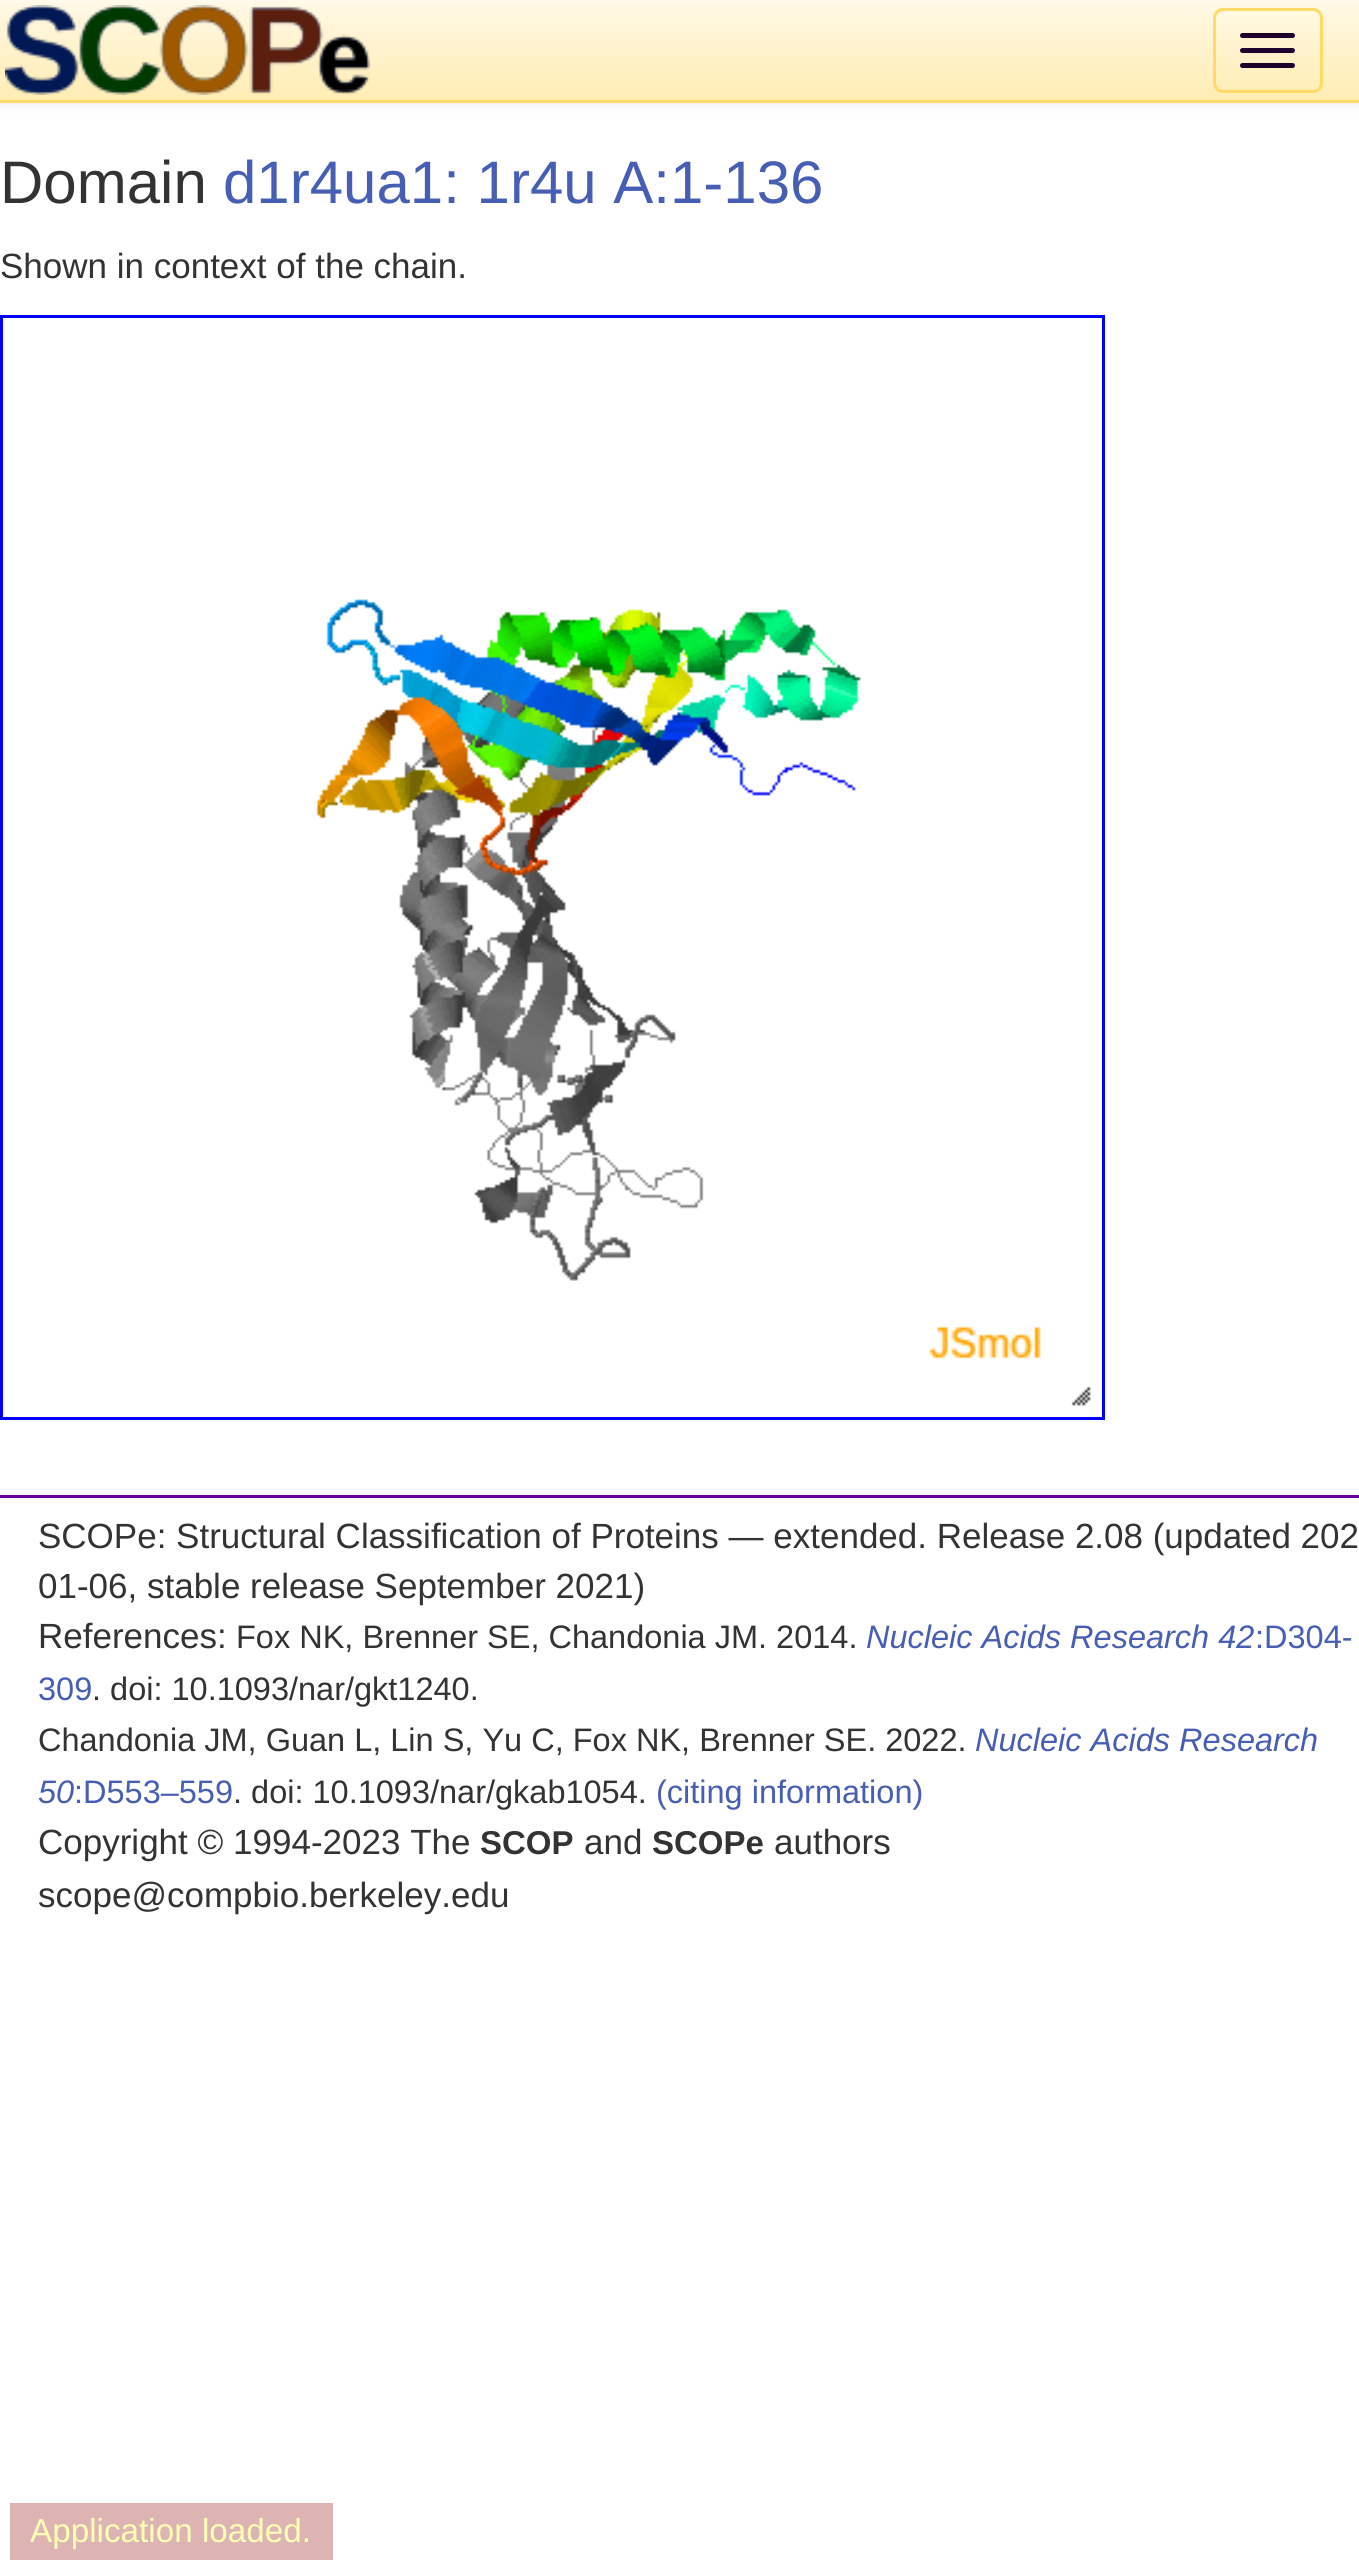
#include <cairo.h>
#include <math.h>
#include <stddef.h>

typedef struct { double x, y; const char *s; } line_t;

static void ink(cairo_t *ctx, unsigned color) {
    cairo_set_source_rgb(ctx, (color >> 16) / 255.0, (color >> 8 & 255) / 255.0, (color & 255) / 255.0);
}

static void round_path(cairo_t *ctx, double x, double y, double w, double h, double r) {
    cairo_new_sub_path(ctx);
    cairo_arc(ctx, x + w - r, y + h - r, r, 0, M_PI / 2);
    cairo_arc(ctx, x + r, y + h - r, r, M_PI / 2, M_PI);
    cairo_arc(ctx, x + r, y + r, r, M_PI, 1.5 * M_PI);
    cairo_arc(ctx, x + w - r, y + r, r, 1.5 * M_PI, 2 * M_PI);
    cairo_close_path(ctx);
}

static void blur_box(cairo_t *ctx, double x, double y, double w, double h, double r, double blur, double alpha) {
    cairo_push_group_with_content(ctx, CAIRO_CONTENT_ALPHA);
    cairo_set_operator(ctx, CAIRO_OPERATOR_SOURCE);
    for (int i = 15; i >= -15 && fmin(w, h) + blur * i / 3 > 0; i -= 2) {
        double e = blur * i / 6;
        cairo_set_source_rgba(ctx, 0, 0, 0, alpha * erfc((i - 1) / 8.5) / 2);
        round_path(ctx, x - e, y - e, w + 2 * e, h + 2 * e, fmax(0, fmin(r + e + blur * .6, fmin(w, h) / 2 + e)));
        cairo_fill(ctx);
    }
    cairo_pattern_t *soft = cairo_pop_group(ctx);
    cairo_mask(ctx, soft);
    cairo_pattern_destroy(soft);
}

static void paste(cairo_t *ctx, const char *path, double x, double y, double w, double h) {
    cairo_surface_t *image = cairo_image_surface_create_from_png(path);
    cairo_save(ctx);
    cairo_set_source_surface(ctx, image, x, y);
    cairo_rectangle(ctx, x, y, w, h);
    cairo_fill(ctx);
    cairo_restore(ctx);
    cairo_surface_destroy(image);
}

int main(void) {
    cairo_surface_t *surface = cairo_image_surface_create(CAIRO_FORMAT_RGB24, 1359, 2569);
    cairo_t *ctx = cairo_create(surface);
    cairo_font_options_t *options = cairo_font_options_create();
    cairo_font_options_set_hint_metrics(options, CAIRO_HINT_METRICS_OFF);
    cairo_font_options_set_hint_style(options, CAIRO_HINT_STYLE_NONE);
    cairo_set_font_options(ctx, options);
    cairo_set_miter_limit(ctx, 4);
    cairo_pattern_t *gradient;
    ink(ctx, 0xFFFFFF);
    cairo_paint(ctx);
    ink(ctx, 0x000000);
    blur_box(ctx, 0, 3, 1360, 102, 0, 6, 0.07);
    gradient = cairo_pattern_create_linear(680, 0, 680, 100);
    cairo_pattern_add_color_stop_rgba(gradient, 0, 1, 0.976, 0.902, 1);
    cairo_pattern_add_color_stop_rgba(gradient, 1, 1, 0.929, 0.702, 1);
    cairo_set_source(ctx, gradient);
    cairo_pattern_destroy(gradient);
    cairo_rectangle(ctx, 0, 3, 1359, 97);
    cairo_fill(ctx);
    ink(ctx, 0xFFFAE9);
    cairo_rectangle(ctx, 0, 0, 1359, 3);
    cairo_fill(ctx);
    ink(ctx, 0xFFDA65);
    cairo_rectangle(ctx, 0, 100, 1359, 3);
    cairo_fill(ctx);
    paste(ctx, "media/1.png", 5, 5, 365, 90);
    round_path(ctx, 1214.5, 9.5, 107, 82, 8.5);
    cairo_set_line_width(ctx, 3);
    cairo_stroke(ctx);
    ink(ctx, 0x1D002B);
    round_path(ctx, 1240, 33, 55, 5, 2.5);
    cairo_fill(ctx);
    round_path(ctx, 1240, 48, 55, 5, 2.5);
    cairo_fill(ctx);
    round_path(ctx, 1240, 63, 55, 5, 2.5);
    cairo_fill(ctx);
    cairo_select_font_face(ctx, "Liberation Sans", CAIRO_FONT_SLANT_NORMAL, CAIRO_FONT_WEIGHT_NORMAL);
    cairo_set_font_size(ctx, 60);
    ink(ctx, 0x333333);
    cairo_move_to(ctx, 0, 203);
    cairo_show_text(ctx, "Domain");
    ink(ctx, 0x465EB4);
    cairo_move_to(ctx, 223, 203);
    cairo_show_text(ctx, "d1r4ua1: 1r4u A:1-136");
    cairo_set_font_size(ctx, 35);
    ink(ctx, 0x333333);
    cairo_move_to(ctx, 0, 278);
    cairo_show_text(ctx, "Shown in context of the chain.");
    cairo_rectangle(ctx, 1.5, 316.5, 1102, 1102);
    ink(ctx, 0x0000FF);
    cairo_stroke(ctx);
    paste(ctx, "media/2.png", 316, 599, 725, 760);
    paste(ctx, "media/3.png", 1071, 1386, 20, 20);
    ink(ctx, 0x660099);
    cairo_rectangle(ctx, 0, 1495, 1359, 3);
    cairo_fill(ctx);
    ink(ctx, 0x333333);
    {
        static const line_t items[] = {
            {38, 1548, "SCOPe: Structural Classification of Proteins — extended. Release 2.08 (updated 202"},
            {38, 1598, "01-06, stable release September 2021)"},
            {38, 1648, "References:"},
        };
        for (size_t i = 0; i < sizeof items / sizeof *items; i++) {
            cairo_move_to(ctx, items[i].x, items[i].y);
            cairo_show_text(ctx, items[i].s);
        }
    }
    cairo_set_font_size(ctx, 32.5);
    cairo_move_to(ctx, 236, 1648);
    cairo_show_text(ctx, "Fox NK, Brenner SE, Chandonia JM. 2014.");
    cairo_select_font_face(ctx, "Liberation Sans", CAIRO_FONT_SLANT_ITALIC, CAIRO_FONT_WEIGHT_NORMAL);
    ink(ctx, 0x465EB4);
    cairo_move_to(ctx, 866, 1648);
    cairo_show_text(ctx, "Nucleic Acids Research 42");
    cairo_select_font_face(ctx, "Liberation Sans", CAIRO_FONT_SLANT_NORMAL, CAIRO_FONT_WEIGHT_NORMAL);
    cairo_move_to(ctx, 1255, 1648);
    cairo_show_text(ctx, ":D304-");
    cairo_move_to(ctx, 38, 1700);
    cairo_show_text(ctx, "309");
    ink(ctx, 0x333333);
    cairo_move_to(ctx, 92, 1700);
    cairo_show_text(ctx, ". doi: 10.1093/nar/gkt1240.");
    cairo_move_to(ctx, 38, 1751);
    cairo_show_text(ctx, "Chandonia JM, Guan L, Lin S, Yu C, Fox NK, Brenner SE. 2022.");
    cairo_select_font_face(ctx, "Liberation Sans", CAIRO_FONT_SLANT_ITALIC, CAIRO_FONT_WEIGHT_NORMAL);
    ink(ctx, 0x465EB4);
    cairo_move_to(ctx, 975, 1751);
    cairo_show_text(ctx, "Nucleic Acids Research");
    cairo_move_to(ctx, 38, 1803);
    cairo_show_text(ctx, "50");
    cairo_select_font_face(ctx, "Liberation Sans", CAIRO_FONT_SLANT_NORMAL, CAIRO_FONT_WEIGHT_NORMAL);
    cairo_move_to(ctx, 74, 1803);
    cairo_show_text(ctx, ":D553–559");
    ink(ctx, 0x333333);
    cairo_move_to(ctx, 233, 1803);
    cairo_show_text(ctx, ". doi: 10.1093/nar/gkab1054.");
    ink(ctx, 0x465EB4);
    cairo_move_to(ctx, 656, 1803);
    cairo_show_text(ctx, "(citing information)");
    cairo_set_font_size(ctx, 35);
    ink(ctx, 0x333333);
    cairo_move_to(ctx, 38, 1854);
    cairo_show_text(ctx, "Copyright © 1994-2023 The");
    cairo_select_font_face(ctx, "Liberation Sans", CAIRO_FONT_SLANT_NORMAL, CAIRO_FONT_WEIGHT_BOLD);
    cairo_set_font_size(ctx, 33);
    cairo_move_to(ctx, 480, 1854);
    cairo_show_text(ctx, "SCOP");
    cairo_select_font_face(ctx, "Liberation Sans", CAIRO_FONT_SLANT_NORMAL, CAIRO_FONT_WEIGHT_NORMAL);
    cairo_set_font_size(ctx, 35);
    cairo_move_to(ctx, 584, 1854);
    cairo_show_text(ctx, "and");
    cairo_select_font_face(ctx, "Liberation Sans", CAIRO_FONT_SLANT_NORMAL, CAIRO_FONT_WEIGHT_BOLD);
    cairo_set_font_size(ctx, 33);
    cairo_move_to(ctx, 652, 1854);
    cairo_show_text(ctx, "SCOPe");
    cairo_select_font_face(ctx, "Liberation Sans", CAIRO_FONT_SLANT_NORMAL, CAIRO_FONT_WEIGHT_NORMAL);
    cairo_set_font_size(ctx, 35);
    cairo_move_to(ctx, 774, 1854);
    cairo_show_text(ctx, "authors");
    cairo_move_to(ctx, 38, 1907);
    cairo_show_text(ctx, "scope@compbio.berkeley.edu");
    ink(ctx, 0xDDB3B3);
    cairo_rectangle(ctx, 10, 2503, 323, 57);
    cairo_fill(ctx);
    cairo_set_font_size(ctx, 33.25);
    ink(ctx, 0xFFFFB3);
    cairo_move_to(ctx, 30, 2542);
    cairo_show_text(ctx, "Application loaded.");
    cairo_surface_write_to_png(surface, "image.png");
    cairo_font_options_destroy(options);
    cairo_destroy(ctx);
    cairo_surface_destroy(surface);
    return 0;
}
